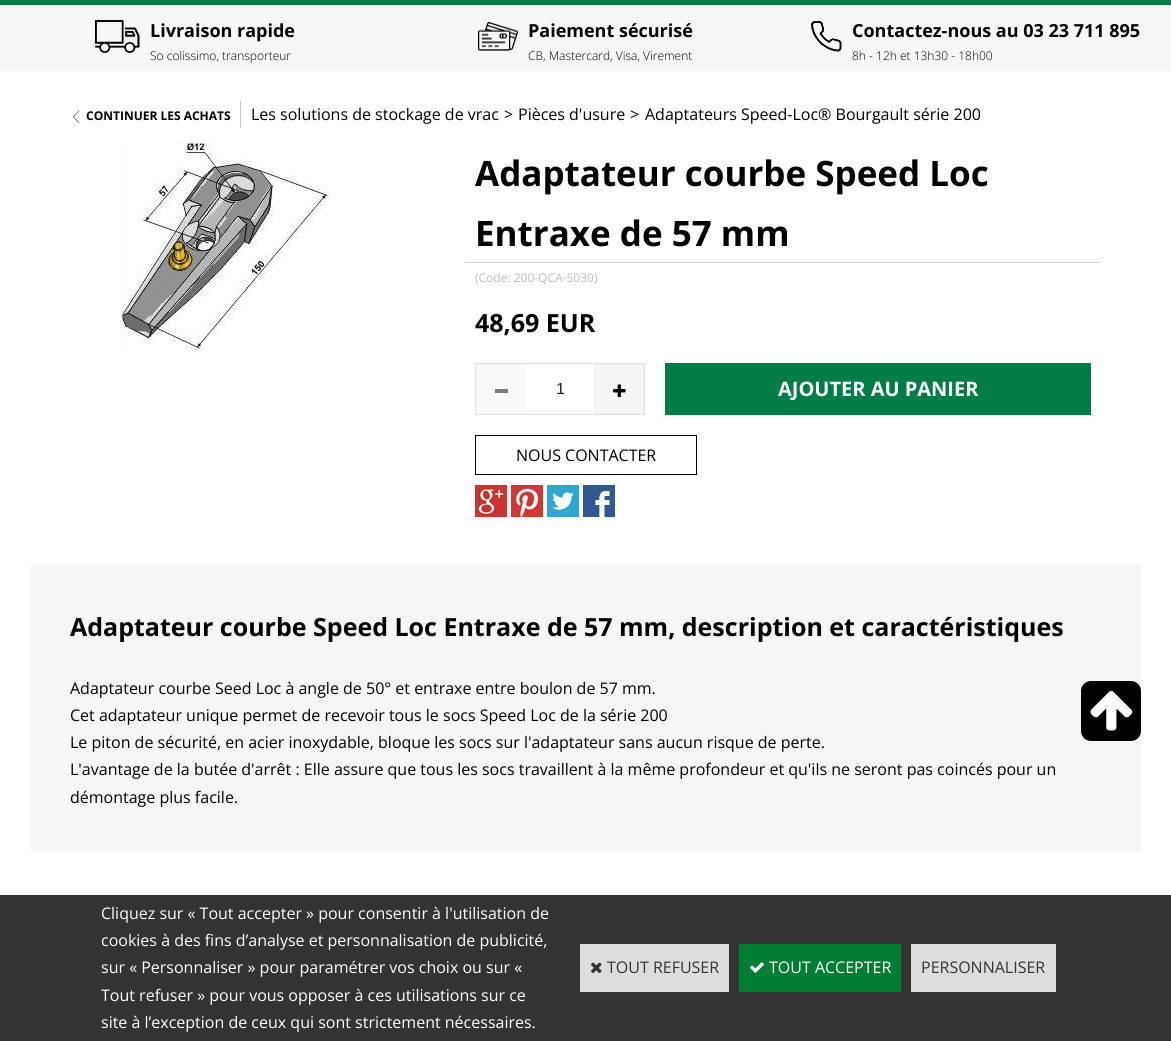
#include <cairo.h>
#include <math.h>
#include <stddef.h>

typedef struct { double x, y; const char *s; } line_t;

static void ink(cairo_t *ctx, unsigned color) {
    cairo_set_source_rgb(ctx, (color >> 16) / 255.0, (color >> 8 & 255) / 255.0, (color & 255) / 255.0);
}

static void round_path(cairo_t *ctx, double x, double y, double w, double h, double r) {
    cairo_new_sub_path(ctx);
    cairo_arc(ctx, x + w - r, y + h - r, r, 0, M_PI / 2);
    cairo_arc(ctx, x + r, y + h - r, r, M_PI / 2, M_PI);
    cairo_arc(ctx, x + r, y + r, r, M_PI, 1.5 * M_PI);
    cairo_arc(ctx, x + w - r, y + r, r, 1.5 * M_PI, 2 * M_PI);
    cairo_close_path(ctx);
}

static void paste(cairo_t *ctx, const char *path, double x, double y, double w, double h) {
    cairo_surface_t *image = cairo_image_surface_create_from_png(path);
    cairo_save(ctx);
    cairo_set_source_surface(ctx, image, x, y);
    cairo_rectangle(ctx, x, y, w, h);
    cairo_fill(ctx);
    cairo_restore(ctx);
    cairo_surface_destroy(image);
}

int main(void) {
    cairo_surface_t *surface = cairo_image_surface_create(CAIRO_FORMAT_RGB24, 1171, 1041);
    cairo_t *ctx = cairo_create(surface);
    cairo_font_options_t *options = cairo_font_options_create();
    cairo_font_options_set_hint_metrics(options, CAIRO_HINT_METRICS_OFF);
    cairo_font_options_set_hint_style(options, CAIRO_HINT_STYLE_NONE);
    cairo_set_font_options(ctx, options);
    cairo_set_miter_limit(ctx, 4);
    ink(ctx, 0xFFFFFF);
    cairo_paint(ctx);
    ink(ctx, 0x007D46);
    cairo_rectangle(ctx, 0, 0, 1171, 5);
    cairo_fill(ctx);
    ink(ctx, 0xF7F7F7);
    cairo_rectangle(ctx, 0, 5, 1171, 66);
    cairo_fill(ctx);
    paste(ctx, "media/1.png", 95, 20, 45, 33);
    cairo_select_font_face(ctx, "Open Sans", CAIRO_FONT_SLANT_NORMAL, CAIRO_FONT_WEIGHT_BOLD);
    cairo_set_font_size(ctx, 18);
    ink(ctx, 0x000000);
    cairo_move_to(ctx, 150, 37);
    cairo_show_text(ctx, "Livraison rapide");
    cairo_select_font_face(ctx, "Open Sans Light", CAIRO_FONT_SLANT_NORMAL, CAIRO_FONT_WEIGHT_NORMAL);
    cairo_set_font_size(ctx, 12);
    cairo_move_to(ctx, 150, 60);
    cairo_show_text(ctx, "So colissimo, transporteur");
    paste(ctx, "media/2.png", 478, 22, 40, 29);
    cairo_select_font_face(ctx, "Open Sans", CAIRO_FONT_SLANT_NORMAL, CAIRO_FONT_WEIGHT_BOLD);
    cairo_set_font_size(ctx, 18);
    cairo_move_to(ctx, 528, 37);
    cairo_show_text(ctx, "Paiement sécurisé");
    cairo_select_font_face(ctx, "Open Sans Light", CAIRO_FONT_SLANT_NORMAL, CAIRO_FONT_WEIGHT_NORMAL);
    cairo_set_font_size(ctx, 12);
    cairo_move_to(ctx, 528, 60);
    cairo_show_text(ctx, "CB, Mastercard, Visa, Virement");
    paste(ctx, "media/3.png", 811, 21, 31, 31);
    cairo_select_font_face(ctx, "Open Sans", CAIRO_FONT_SLANT_NORMAL, CAIRO_FONT_WEIGHT_BOLD);
    cairo_set_font_size(ctx, 18);
    cairo_move_to(ctx, 852, 37);
    cairo_show_text(ctx, "Contactez-nous au 03 23 711 895");
    cairo_select_font_face(ctx, "Open Sans Light", CAIRO_FONT_SLANT_NORMAL, CAIRO_FONT_WEIGHT_NORMAL);
    cairo_set_font_size(ctx, 12);
    cairo_move_to(ctx, 852, 60);
    cairo_show_text(ctx, "8h - 12h et 13h30 - 18h00");
    paste(ctx, "media/4.png", 72, 110, 8, 13);
    cairo_select_font_face(ctx, "Open Sans", CAIRO_FONT_SLANT_NORMAL, CAIRO_FONT_WEIGHT_BOLD);
    cairo_move_to(ctx, 86, 120);
    cairo_show_text(ctx, "CONTINUER LES ACHATS");
    ink(ctx, 0xCCCCCC);
    cairo_rectangle(ctx, 240, 101, 1, 27);
    cairo_fill(ctx);
    cairo_select_font_face(ctx, "Open Sans", CAIRO_FONT_SLANT_NORMAL, CAIRO_FONT_WEIGHT_NORMAL);
    cairo_set_font_size(ctx, 16);
    ink(ctx, 0x000000);
    {
        static const line_t items[] = {
            {251, 120, "Les solutions de stockage de vrac"},
            {504, 120, ">"},
            {518, 120, "Pièces d'usure"},
            {630, 120, ">"},
            {645, 120, "Adaptateurs Speed-Loc® Bourgault série 200"},
        };
        for (size_t i = 0; i < sizeof items / sizeof *items; i++) {
            cairo_move_to(ctx, items[i].x, items[i].y);
            cairo_show_text(ctx, items[i].s);
        }
    }
    paste(ctx, "media/5.png", 122, 143, 208, 208);
    ink(ctx, 0xD1D1D1);
    cairo_rectangle(ctx, 465, 262, 636, 1);
    cairo_fill(ctx);
    cairo_select_font_face(ctx, "Open Sans", CAIRO_FONT_SLANT_NORMAL, CAIRO_FONT_WEIGHT_BOLD);
    cairo_set_font_size(ctx, 35);
    ink(ctx, 0x000000);
    cairo_move_to(ctx, 475, 186);
    cairo_show_text(ctx, "Adaptateur courbe Speed Loc");
    cairo_move_to(ctx, 475, 246);
    cairo_show_text(ctx, "Entraxe de 57 mm");
    cairo_select_font_face(ctx, "Open Sans", CAIRO_FONT_SLANT_NORMAL, CAIRO_FONT_WEIGHT_NORMAL);
    cairo_set_font_size(ctx, 12);
    ink(ctx, 0xBBBBBB);
    cairo_move_to(ctx, 475, 282);
    cairo_show_text(ctx, "(Code: 200-QCA-5030)");
    cairo_select_font_face(ctx, "Open Sans", CAIRO_FONT_SLANT_NORMAL, CAIRO_FONT_WEIGHT_BOLD);
    cairo_set_font_size(ctx, 25);
    ink(ctx, 0x000000);
    cairo_move_to(ctx, 475, 332);
    cairo_show_text(ctx, "48,69 EUR");
    cairo_rectangle(ctx, 475.5, 363.5, 169, 51);
    ink(ctx, 0xE3E3E3);
    cairo_set_line_width(ctx, 1);
    cairo_stroke(ctx);
    ink(ctx, 0xFAFAFA);
    cairo_rectangle(ctx, 476.5, 364.5, 49, 49);
    cairo_fill_preserve(ctx);
    ink(ctx, 0xF8F8F8);
    cairo_stroke(ctx);
    ink(ctx, 0x7D7D7D);
    cairo_rectangle(ctx, 495, 389, 13, 4);
    cairo_fill(ctx);
    cairo_select_font_face(ctx, "Liberation Sans", CAIRO_FONT_SLANT_NORMAL, CAIRO_FONT_WEIGHT_NORMAL);
    cairo_set_font_size(ctx, 16);
    ink(ctx, 0x212121);
    cairo_move_to(ctx, 556, 394);
    cairo_show_text(ctx, "1");
    ink(ctx, 0xF5F5F5);
    cairo_rectangle(ctx, 594.5, 364.5, 49, 49);
    cairo_fill_preserve(ctx);
    ink(ctx, 0xF0F0F0);
    cairo_stroke(ctx);
    paste(ctx, "media/6.png", 613, 384, 13, 13);
    ink(ctx, 0x007D46);
    cairo_rectangle(ctx, 665, 363, 426, 52);
    cairo_fill(ctx);
    cairo_select_font_face(ctx, "Open Sans", CAIRO_FONT_SLANT_NORMAL, CAIRO_FONT_WEIGHT_BOLD);
    cairo_set_font_size(ctx, 20);
    ink(ctx, 0xFFFFFF);
    cairo_move_to(ctx, 778, 396);
    cairo_show_text(ctx, "AJOUTER AU PANIER");
    cairo_rectangle(ctx, 475.5, 435.5, 221, 39);
    ink(ctx, 0x000000);
    cairo_stroke(ctx);
    cairo_select_font_face(ctx, "Open Sans", CAIRO_FONT_SLANT_NORMAL, CAIRO_FONT_WEIGHT_NORMAL);
    cairo_set_font_size(ctx, 16);
    cairo_move_to(ctx, 516, 461);
    cairo_show_text(ctx, "NOUS CONTACTER");
    paste(ctx, "media/7.png", 475, 485, 32, 32);
    paste(ctx, "media/8.png", 511, 485, 32, 32);
    paste(ctx, "media/9.png", 547, 485, 32, 32);
    paste(ctx, "media/10.png", 583, 485, 32, 32);
    ink(ctx, 0xF6F6F6);
    cairo_rectangle(ctx, 30, 565, 1111, 286);
    cairo_fill(ctx);
    cairo_select_font_face(ctx, "Open Sans", CAIRO_FONT_SLANT_NORMAL, CAIRO_FONT_WEIGHT_BOLD);
    cairo_set_font_size(ctx, 25);
    ink(ctx, 0x000000);
    cairo_move_to(ctx, 70, 636);
    cairo_show_text(ctx, "Adaptateur courbe Speed Loc Entraxe de 57 mm, description et caractéristiques");
    cairo_select_font_face(ctx, "Open Sans", CAIRO_FONT_SLANT_NORMAL, CAIRO_FONT_WEIGHT_NORMAL);
    cairo_set_font_size(ctx, 16);
    {
        static const line_t items[] = {
            {70, 694, "Adaptateur courbe Seed Loc à angle de 50° et entraxe entre boulon de 57 mm."},
            {70, 721, "Cet adaptateur unique permet de recevoir tous le socs Speed Loc de la série 200"},
            {70, 748, "Le piton de sécurité, en acier inoxydable, bloque les socs sur l'adaptateur sans aucun risque de perte."},
            {70, 775, "L'avantage de la butée d'arrêt : Elle assure que tous les socs travaillent à la même profondeur et qu'ils ne seront pas coincés pour un"},
            {70, 803, "démontage plus facile."},
        };
        for (size_t i = 0; i < sizeof items / sizeof *items; i++) {
            cairo_move_to(ctx, items[i].x, items[i].y);
            cairo_show_text(ctx, items[i].s);
        }
    }
    round_path(ctx, 1081, 681, 60, 60, 10);
    cairo_fill(ctx);
    paste(ctx, "media/11.png", 1090, 691, 43, 40);
    ink(ctx, 0x333333);
    cairo_rectangle(ctx, 0, 895, 1171, 146);
    cairo_fill(ctx);
    ink(ctx, 0xFFFFFF);
    {
        static const line_t items[] = {
            {101, 919, "Cliquez sur « Tout accepter » pour consentir à l'utilisation de"},
            {101, 946, "cookies à des fins d’analyse et personnalisation de publicité,"},
            {101, 973, "sur « Personnaliser » pour paramétrer vos choix ou sur «"},
            {101, 1001, "Tout refuser » pour vous opposer à ces utilisations sur ce"},
            {101, 1028, "site à l’exception de ceux qui sont strictement nécessaires."},
        };
        for (size_t i = 0; i < sizeof items / sizeof *items; i++) {
            cairo_move_to(ctx, items[i].x, items[i].y);
            cairo_show_text(ctx, items[i].s);
        }
    }
    ink(ctx, 0xDDDDDD);
    cairo_rectangle(ctx, 580, 944, 149, 48);
    cairo_fill(ctx);
    paste(ctx, "media/12.png", 591, 962, 11, 12);
    ink(ctx, 0x333333);
    cairo_move_to(ctx, 607, 973);
    cairo_show_text(ctx, "TOUT REFUSER");
    ink(ctx, 0x007E33);
    cairo_rectangle(ctx, 739, 944, 162, 48);
    cairo_fill(ctx);
    paste(ctx, "media/13.png", 750, 962, 14, 11);
    ink(ctx, 0xFFFFFF);
    cairo_move_to(ctx, 769, 973);
    cairo_show_text(ctx, "TOUT ACCEPTER");
    ink(ctx, 0xDDDDDD);
    cairo_rectangle(ctx, 911, 944, 145, 48);
    cairo_fill(ctx);
    ink(ctx, 0x333333);
    cairo_move_to(ctx, 921, 973);
    cairo_show_text(ctx, "PERSONNALISER");
    cairo_surface_write_to_png(surface, "image.png");
    cairo_font_options_destroy(options);
    cairo_destroy(ctx);
    cairo_surface_destroy(surface);
    return 0;
}
